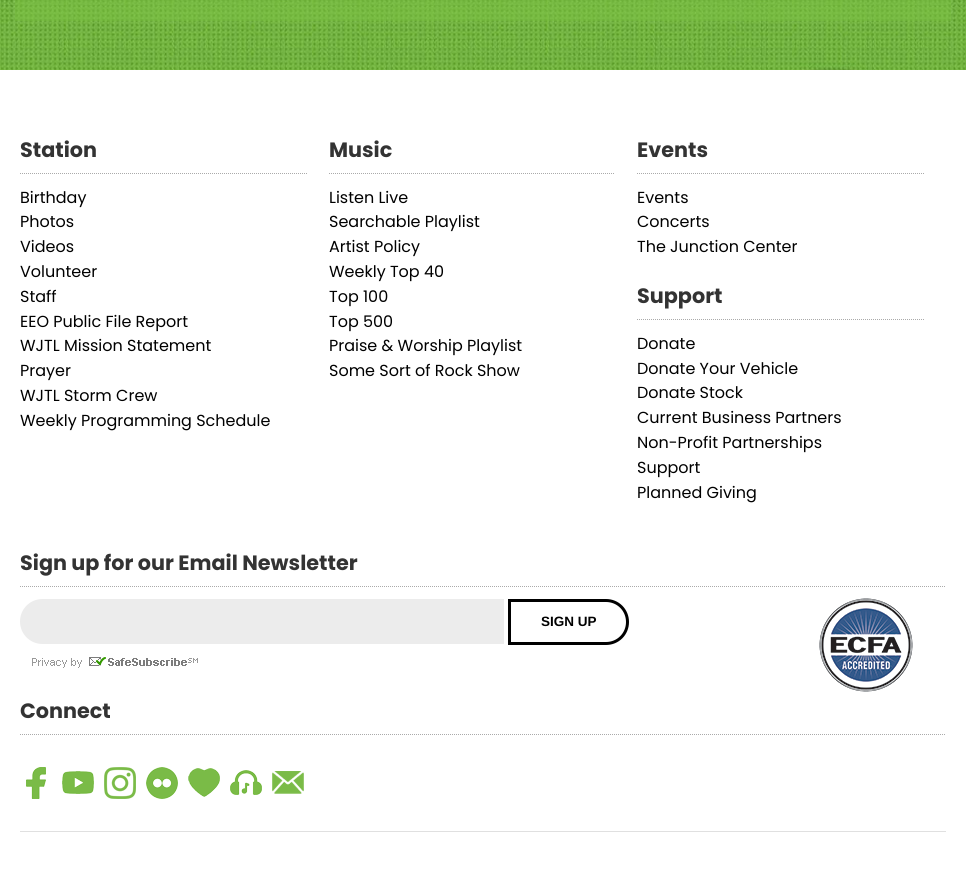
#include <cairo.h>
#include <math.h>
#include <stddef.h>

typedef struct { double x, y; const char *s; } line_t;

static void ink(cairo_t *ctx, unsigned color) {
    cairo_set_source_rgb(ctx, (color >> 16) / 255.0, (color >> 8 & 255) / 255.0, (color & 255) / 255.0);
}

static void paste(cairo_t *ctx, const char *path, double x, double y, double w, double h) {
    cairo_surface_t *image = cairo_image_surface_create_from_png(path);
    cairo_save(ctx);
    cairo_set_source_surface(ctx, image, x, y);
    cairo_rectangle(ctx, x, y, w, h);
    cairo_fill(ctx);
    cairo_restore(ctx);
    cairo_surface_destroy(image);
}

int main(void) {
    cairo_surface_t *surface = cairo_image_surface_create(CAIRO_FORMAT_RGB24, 966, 871);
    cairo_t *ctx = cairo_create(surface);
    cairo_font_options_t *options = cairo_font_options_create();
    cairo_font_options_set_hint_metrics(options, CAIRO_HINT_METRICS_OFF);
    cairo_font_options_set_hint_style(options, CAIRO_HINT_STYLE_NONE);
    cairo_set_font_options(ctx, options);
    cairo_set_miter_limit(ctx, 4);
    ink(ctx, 0xFFFFFF);
    cairo_paint(ctx);
    paste(ctx, "media/1.png", 0, 0, 966, 70);
    cairo_set_source_rgba(ctx, 0.486, 0.761, 0.271, 0.5);
    cairo_rectangle(ctx, 15, 0, 936, 21);
    cairo_fill(ctx);
    cairo_new_path(ctx);
    cairo_move_to(ctx, 20, 173.5);
    cairo_line_to(ctx, 307, 173.5);
    ink(ctx, 0xAAAAAA);
    cairo_set_line_width(ctx, 1);
    cairo_set_dash(ctx, (double[]){1, 1}, 2, 0);
    cairo_stroke(ctx);
    cairo_select_font_face(ctx, "Poppins", CAIRO_FONT_SLANT_NORMAL, CAIRO_FONT_WEIGHT_BOLD);
    cairo_set_font_size(ctx, 20.75);
    ink(ctx, 0x333333);
    cairo_move_to(ctx, 20, 157);
    cairo_show_text(ctx, "Station");
    cairo_select_font_face(ctx, "Poppins", CAIRO_FONT_SLANT_NORMAL, CAIRO_FONT_WEIGHT_NORMAL);
    cairo_set_font_size(ctx, 16);
    ink(ctx, 0x000000);
    {
        static const line_t items[] = {
            {20, 203, "Birthday"},
            {20, 227, "Photos"},
            {20, 252, "Videos"},
            {20, 277, "Volunteer"},
            {20, 302, "Staff"},
            {20, 327, "EEO Public File Report"},
            {20, 351, "WJTL Mission Statement"},
            {20, 376, "Prayer"},
            {20, 401, "WJTL Storm Crew"},
            {20, 426, "Weekly Programming Schedule"},
        };
        for (size_t i = 0; i < sizeof items / sizeof *items; i++) {
            cairo_move_to(ctx, items[i].x, items[i].y);
            cairo_show_text(ctx, items[i].s);
        }
    }
    cairo_new_path(ctx);
    cairo_move_to(ctx, 329, 173.5);
    cairo_line_to(ctx, 615, 173.5);
    ink(ctx, 0xAAAAAA);
    cairo_stroke(ctx);
    cairo_select_font_face(ctx, "Poppins", CAIRO_FONT_SLANT_NORMAL, CAIRO_FONT_WEIGHT_BOLD);
    cairo_set_font_size(ctx, 20.75);
    ink(ctx, 0x333333);
    cairo_move_to(ctx, 329, 157);
    cairo_show_text(ctx, "Music");
    cairo_select_font_face(ctx, "Poppins", CAIRO_FONT_SLANT_NORMAL, CAIRO_FONT_WEIGHT_NORMAL);
    cairo_set_font_size(ctx, 16);
    ink(ctx, 0x000000);
    {
        static const line_t items[] = {
            {329, 203, "Listen Live"},
            {329, 227, "Searchable Playlist"},
            {329, 252, "Artist Policy"},
            {329, 277, "Weekly Top 40"},
            {329, 302, "Top 100"},
            {329, 327, "Top 500"},
            {329, 351, "Praise & Worship Playlist"},
            {329, 376, "Some Sort of Rock Show"},
        };
        for (size_t i = 0; i < sizeof items / sizeof *items; i++) {
            cairo_move_to(ctx, items[i].x, items[i].y);
            cairo_show_text(ctx, items[i].s);
        }
    }
    cairo_new_path(ctx);
    cairo_move_to(ctx, 637, 173.5);
    cairo_line_to(ctx, 924, 173.5);
    ink(ctx, 0xAAAAAA);
    cairo_stroke(ctx);
    cairo_select_font_face(ctx, "Poppins", CAIRO_FONT_SLANT_NORMAL, CAIRO_FONT_WEIGHT_BOLD);
    cairo_set_font_size(ctx, 20.75);
    ink(ctx, 0x333333);
    cairo_move_to(ctx, 637, 157);
    cairo_show_text(ctx, "Events");
    cairo_select_font_face(ctx, "Poppins", CAIRO_FONT_SLANT_NORMAL, CAIRO_FONT_WEIGHT_NORMAL);
    cairo_set_font_size(ctx, 16);
    ink(ctx, 0x000000);
    {
        static const line_t items[] = {
            {637, 203, "Events"},
            {637, 227, "Concerts"},
            {637, 252, "The Junction Center"},
        };
        for (size_t i = 0; i < sizeof items / sizeof *items; i++) {
            cairo_move_to(ctx, items[i].x, items[i].y);
            cairo_show_text(ctx, items[i].s);
        }
    }
    cairo_new_path(ctx);
    cairo_move_to(ctx, 637, 319.5);
    cairo_line_to(ctx, 924, 319.5);
    ink(ctx, 0xAAAAAA);
    cairo_stroke(ctx);
    cairo_select_font_face(ctx, "Poppins", CAIRO_FONT_SLANT_NORMAL, CAIRO_FONT_WEIGHT_BOLD);
    cairo_set_font_size(ctx, 20.75);
    ink(ctx, 0x333333);
    cairo_move_to(ctx, 637, 303);
    cairo_show_text(ctx, "Support");
    cairo_select_font_face(ctx, "Poppins", CAIRO_FONT_SLANT_NORMAL, CAIRO_FONT_WEIGHT_NORMAL);
    cairo_set_font_size(ctx, 16);
    ink(ctx, 0x000000);
    {
        static const line_t items[] = {
            {637, 349, "Donate"},
            {637, 374, "Donate Your Vehicle"},
            {637, 398, "Donate Stock"},
            {637, 423, "Current Business Partners"},
            {637, 448, "Non-Profit Partnerships"},
            {637, 473, "Support"},
            {637, 498, "Planned Giving"},
        };
        for (size_t i = 0; i < sizeof items / sizeof *items; i++) {
            cairo_move_to(ctx, items[i].x, items[i].y);
            cairo_show_text(ctx, items[i].s);
        }
    }
    cairo_new_path(ctx);
    cairo_move_to(ctx, 20, 586.5);
    cairo_line_to(ctx, 946, 586.5);
    ink(ctx, 0xAAAAAA);
    cairo_stroke(ctx);
    cairo_select_font_face(ctx, "Poppins", CAIRO_FONT_SLANT_NORMAL, CAIRO_FONT_WEIGHT_BOLD);
    cairo_set_font_size(ctx, 20.75);
    ink(ctx, 0x333333);
    cairo_move_to(ctx, 20, 570);
    cairo_show_text(ctx, "Sign up for our Email Newsletter");
    ink(ctx, 0xECECEC);
    cairo_new_path(ctx);
    cairo_move_to(ctx, 42.5, 599);
    cairo_line_to(ctx, 504, 599);
    cairo_line_to(ctx, 504, 644);
    cairo_line_to(ctx, 42.5, 644);
    cairo_curve_to(ctx, 30, 644, 20, 634, 20, 621.5);
    cairo_curve_to(ctx, 20, 609, 30, 599, 42.5, 599);
    cairo_close_path(ctx);
    cairo_fill(ctx);
    cairo_new_path(ctx);
    cairo_move_to(ctx, 509.5, 600.5);
    cairo_line_to(ctx, 606, 600.5);
    cairo_curve_to(ctx, 618, 600.5, 627.5, 610, 627.5, 622);
    cairo_curve_to(ctx, 627.5, 634, 618, 643.5, 606, 643.5);
    cairo_line_to(ctx, 509.5, 643.5);
    cairo_close_path(ctx);
    ink(ctx, 0x000000);
    cairo_set_line_width(ctx, 3);
    cairo_set_dash(ctx, NULL, 0, 0);
    cairo_stroke(ctx);
    cairo_select_font_face(ctx, "Liberation Sans", CAIRO_FONT_SLANT_NORMAL, CAIRO_FONT_WEIGHT_BOLD);
    cairo_set_font_size(ctx, 13.5);
    cairo_move_to(ctx, 541, 626);
    cairo_show_text(ctx, "SIGN UP");
    paste(ctx, "media/2.png", 32, 657, 166, 11);
    paste(ctx, "media/3.png", 819, 598, 94, 94);
    cairo_new_path(ctx);
    cairo_move_to(ctx, 20, 734.5);
    cairo_line_to(ctx, 946, 734.5);
    ink(ctx, 0xAAAAAA);
    cairo_set_line_width(ctx, 1);
    cairo_set_dash(ctx, (double[]){1, 1}, 2, 0);
    cairo_stroke(ctx);
    cairo_select_font_face(ctx, "Poppins", CAIRO_FONT_SLANT_NORMAL, CAIRO_FONT_WEIGHT_BOLD);
    cairo_set_font_size(ctx, 20.75);
    ink(ctx, 0x333333);
    cairo_move_to(ctx, 20, 718);
    cairo_show_text(ctx, "Connect");
    paste(ctx, "media/4.png", 26, 767, 20, 32);
    paste(ctx, "media/5.png", 62, 771, 32, 23);
    paste(ctx, "media/6.png", 104, 767, 32, 32);
    paste(ctx, "media/7.png", 146, 767, 32, 32);
    paste(ctx, "media/8.png", 188, 768, 32, 29);
    paste(ctx, "media/9.png", 230, 770, 32, 25);
    paste(ctx, "media/10.png", 272, 771, 32, 23);
    ink(ctx, 0xE0E0E0);
    cairo_rectangle(ctx, 20, 831, 926, 1);
    cairo_fill(ctx);
    cairo_surface_write_to_png(surface, "image.png");
    cairo_font_options_destroy(options);
    cairo_destroy(ctx);
    cairo_surface_destroy(surface);
    return 0;
}
